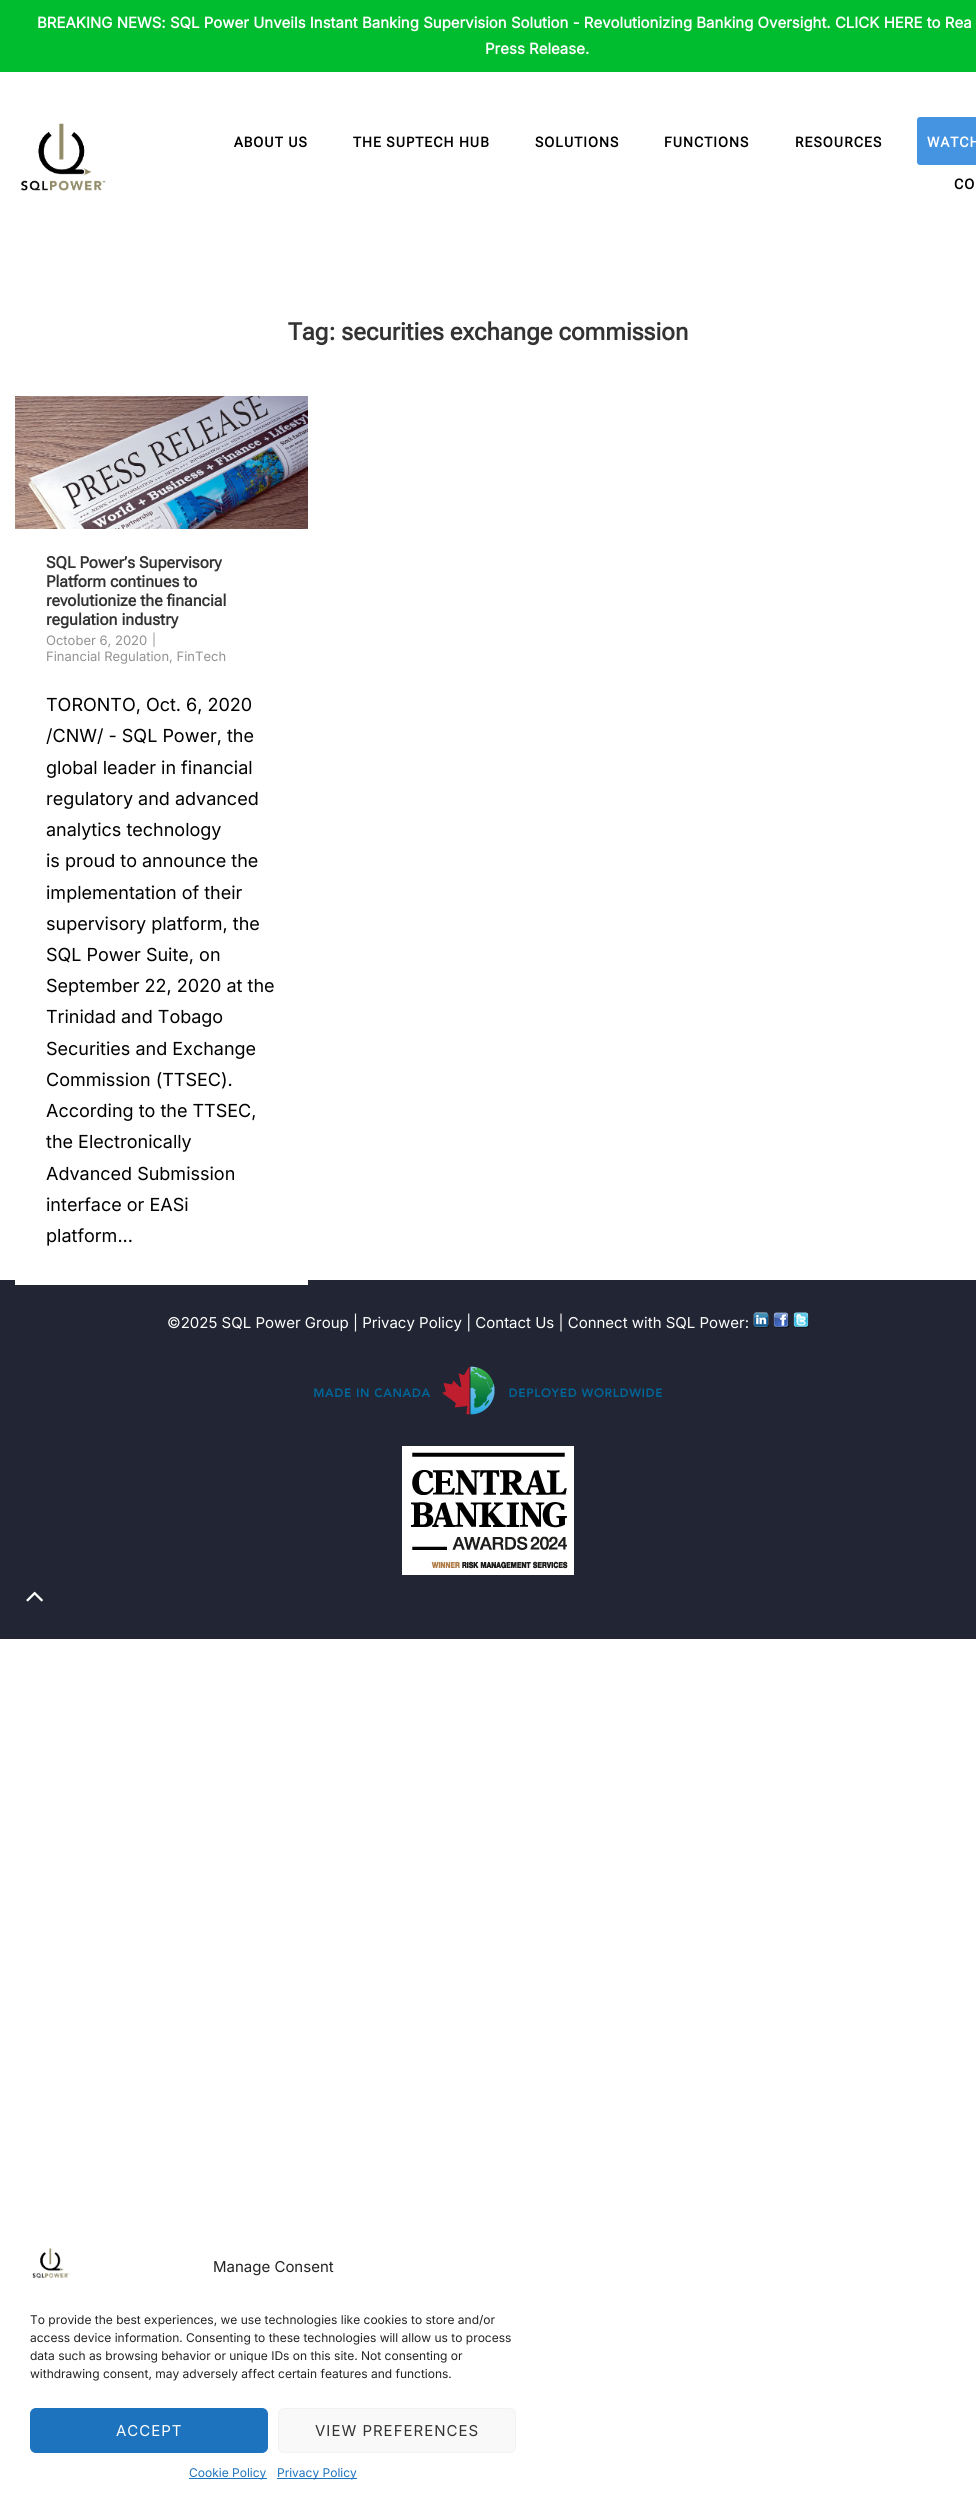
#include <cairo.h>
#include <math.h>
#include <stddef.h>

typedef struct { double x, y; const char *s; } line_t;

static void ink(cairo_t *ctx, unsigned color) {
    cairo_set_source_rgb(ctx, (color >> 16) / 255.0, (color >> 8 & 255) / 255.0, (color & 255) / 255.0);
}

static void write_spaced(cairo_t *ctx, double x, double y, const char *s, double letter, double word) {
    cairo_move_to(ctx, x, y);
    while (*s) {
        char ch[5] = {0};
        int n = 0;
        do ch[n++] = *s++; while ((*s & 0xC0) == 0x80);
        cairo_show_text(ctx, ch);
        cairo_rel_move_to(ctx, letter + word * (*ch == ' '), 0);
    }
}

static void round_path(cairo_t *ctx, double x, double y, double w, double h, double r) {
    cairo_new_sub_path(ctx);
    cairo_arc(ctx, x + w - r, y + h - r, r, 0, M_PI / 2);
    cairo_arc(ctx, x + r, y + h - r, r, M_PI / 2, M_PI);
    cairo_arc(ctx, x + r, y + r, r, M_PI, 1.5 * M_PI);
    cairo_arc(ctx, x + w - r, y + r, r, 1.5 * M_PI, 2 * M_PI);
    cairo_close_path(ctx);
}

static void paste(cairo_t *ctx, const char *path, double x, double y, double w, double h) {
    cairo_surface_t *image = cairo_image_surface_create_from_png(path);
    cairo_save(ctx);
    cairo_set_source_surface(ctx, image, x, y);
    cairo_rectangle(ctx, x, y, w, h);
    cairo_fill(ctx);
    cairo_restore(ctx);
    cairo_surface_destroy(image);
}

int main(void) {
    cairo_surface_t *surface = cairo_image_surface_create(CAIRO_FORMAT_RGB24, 976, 2509);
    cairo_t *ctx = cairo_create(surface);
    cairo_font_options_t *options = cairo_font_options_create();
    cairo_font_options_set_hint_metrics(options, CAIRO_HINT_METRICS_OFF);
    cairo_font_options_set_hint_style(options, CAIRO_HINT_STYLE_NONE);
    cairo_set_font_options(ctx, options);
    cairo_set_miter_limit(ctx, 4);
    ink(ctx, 0xFFFFFF);
    cairo_paint(ctx);
    ink(ctx, 0x00BD2F);
    cairo_rectangle(ctx, 0, 0, 976, 72);
    cairo_fill(ctx);
    cairo_select_font_face(ctx, "Inter", CAIRO_FONT_SLANT_NORMAL, CAIRO_FONT_WEIGHT_BOLD);
    cairo_set_font_size(ctx, 15);
    ink(ctx, 0xFFFFFF);
    cairo_move_to(ctx, 37, 28);
    cairo_show_text(ctx, "BREAKING NEWS: SQL Power Unveils Instant Banking Supervision Solution - Revolutionizing Banking Oversight. CLICK HERE to Rea");
    cairo_move_to(ctx, 485, 54);
    cairo_show_text(ctx, "Press Release.");
    paste(ctx, "media/1.png", 21, 123, 85, 68);
    cairo_select_font_face(ctx, "Roboto Flex", CAIRO_FONT_SLANT_NORMAL, CAIRO_FONT_WEIGHT_BOLD);
    cairo_set_font_size(ctx, 14);
    ink(ctx, 0x000000);
    {
        static const line_t items[] = {
            {234, 147, "ABOUT US"},
            {353, 147, "THE SUPTECH HUB"},
            {535, 147, "SOLUTIONS"},
            {664, 147, "FUNCTIONS"},
            {795, 147, "RESOURCES"},
        };
        for (size_t i = 0; i < sizeof items / sizeof *items; i++) {
            write_spaced(ctx, items[i].x, items[i].y, items[i].s, 1, 0);
        }
    }
    ink(ctx, 0x4594E1);
    round_path(ctx, 917, 117, 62, 48, 3);
    cairo_fill(ctx);
    ink(ctx, 0xFFFFFF);
    write_spaced(ctx, 927, 147, "WATCH", 1, 0);
    ink(ctx, 0x000000);
    write_spaced(ctx, 954, 189, "CO", 1, 0);
    cairo_set_font_size(ctx, 24);
    ink(ctx, 0x333333);
    cairo_move_to(ctx, 288, 340);
    cairo_show_text(ctx, "Tag: securities exchange commission");
    ink(ctx, 0x222533);
    cairo_rectangle(ctx, 0, 1280, 976, 359);
    cairo_fill(ctx);
    ink(ctx, 0xFFFFFF);
    cairo_rectangle(ctx, 15, 1280, 293, 5);
    cairo_fill(ctx);
    paste(ctx, "media/2.png", 15, 396, 293, 133);
    cairo_set_font_size(ctx, 16);
    ink(ctx, 0x333333);
    {
        static const line_t items[] = {
            {46, 568, "SQL Power’s Supervisory"},
            {46, 587, "Platform continues to"},
            {46, 606, "revolutionize the financial"},
            {46, 625, "regulation industry"},
        };
        for (size_t i = 0; i < sizeof items / sizeof *items; i++) {
            cairo_move_to(ctx, items[i].x, items[i].y);
            cairo_show_text(ctx, items[i].s);
        }
    }
    cairo_select_font_face(ctx, "Inter", CAIRO_FONT_SLANT_NORMAL, CAIRO_FONT_WEIGHT_NORMAL);
    cairo_set_font_size(ctx, 13);
    ink(ctx, 0x929292);
    cairo_move_to(ctx, 46, 645);
    cairo_show_text(ctx, "October 6, 2020");
    cairo_set_font_size(ctx, 12);
    cairo_move_to(ctx, 152, 644);
    cairo_show_text(ctx, "|");
    cairo_set_font_size(ctx, 13);
    cairo_move_to(ctx, 46, 661);
    cairo_show_text(ctx, "Financial Regulation, FinTech");
    cairo_set_font_size(ctx, 18);
    ink(ctx, 0x000000);
    {
        static const line_t items[] = {
            {46, 711, "TORONTO, Oct. 6, 2020"},
            {46, 742, "/CNW/ - SQL Power, the"},
            {46, 774, "global leader in financial"},
            {46, 805, "regulatory and advanced"},
            {46, 836, "analytics technology"},
            {46, 867, "is proud to announce the"},
            {46, 899, "implementation of their"},
            {46, 930, "supervisory platform, the"},
            {46, 961, "SQL Power Suite, on"},
            {46, 992, "September 22, 2020 at the"},
            {46, 1023, "Trinidad and Tobago"},
            {46, 1055, "Securities and Exchange"},
            {46, 1086, "Commission (TTSEC)."},
            {46, 1117, "According to the TTSEC,"},
            {46, 1148, "the Electronically"},
            {46, 1180, "Advanced Submission"},
            {46, 1211, "interface or EASi"},
            {46, 1242, "platform..."},
        };
        for (size_t i = 0; i < sizeof items / sizeof *items; i++) {
            cairo_move_to(ctx, items[i].x, items[i].y);
            cairo_show_text(ctx, items[i].s);
        }
    }
    cairo_set_font_size(ctx, 15);
    ink(ctx, 0xFFFFFF);
    cairo_move_to(ctx, 167, 1328);
    cairo_show_text(ctx, "©2025 SQL Power Group | Privacy Policy | Contact Us | Connect with SQL Power:");
    paste(ctx, "media/3.png", 753, 1312, 16, 16);
    paste(ctx, "media/4.png", 773, 1312, 16, 16);
    paste(ctx, "media/5.png", 793, 1312, 16, 16);
    paste(ctx, "media/6.png", 314, 1366, 348, 49);
    paste(ctx, "media/7.png", 402, 1446, 172, 129);
    paste(ctx, "media/8.png", 26, 1591, 17, 11);
    paste(ctx, "media/9.png", 32, 2248, 38, 30);
    ink(ctx, 0x222222);
    cairo_move_to(ctx, 213, 2272);
    cairo_show_text(ctx, "Manage Consent");
    cairo_set_font_size(ctx, 12);
    {
        static const line_t items[] = {
            {30, 2324, "To provide the best experiences, we use technologies like cookies to store and/or"},
            {30, 2342, "access device information. Consenting to these technologies will allow us to process"},
            {30, 2360, "data such as browsing behavior or unique IDs on this site. Not consenting or"},
            {30, 2378, "withdrawing consent, may adversely affect certain features and functions."},
        };
        for (size_t i = 0; i < sizeof items / sizeof *items; i++) {
            cairo_move_to(ctx, items[i].x, items[i].y);
            cairo_show_text(ctx, items[i].s);
        }
    }
    ink(ctx, 0x1E73BE);
    round_path(ctx, 30.5, 2408.5, 237, 44, 5.5);
    cairo_fill_preserve(ctx);
    cairo_set_line_width(ctx, 1);
    cairo_stroke(ctx);
    cairo_set_font_size(ctx, 15);
    ink(ctx, 0xFFFFFF);
    write_spaced(ctx, 116, 2436, "ACCEPT", 1, 0);
    ink(ctx, 0xF9F9F9);
    round_path(ctx, 278.5, 2408.5, 237, 44, 5.5);
    cairo_fill_preserve(ctx);
    ink(ctx, 0xF2F2F2);
    cairo_stroke(ctx);
    ink(ctx, 0x333333);
    write_spaced(ctx, 315, 2436, "VIEW PREFERENCES", 1, 0);
    ink(ctx, 0x1E73BE);
    cairo_rectangle(ctx, 189, 2478, 78, 1);
    cairo_fill(ctx);
    cairo_set_font_size(ctx, 12);
    cairo_move_to(ctx, 189, 2477);
    cairo_show_text(ctx, "Cookie Policy");
    cairo_rectangle(ctx, 277, 2478, 80, 1);
    cairo_fill(ctx);
    cairo_move_to(ctx, 277, 2477);
    cairo_show_text(ctx, "Privacy Policy");
    cairo_surface_write_to_png(surface, "image.png");
    cairo_font_options_destroy(options);
    cairo_destroy(ctx);
    cairo_surface_destroy(surface);
    return 0;
}
